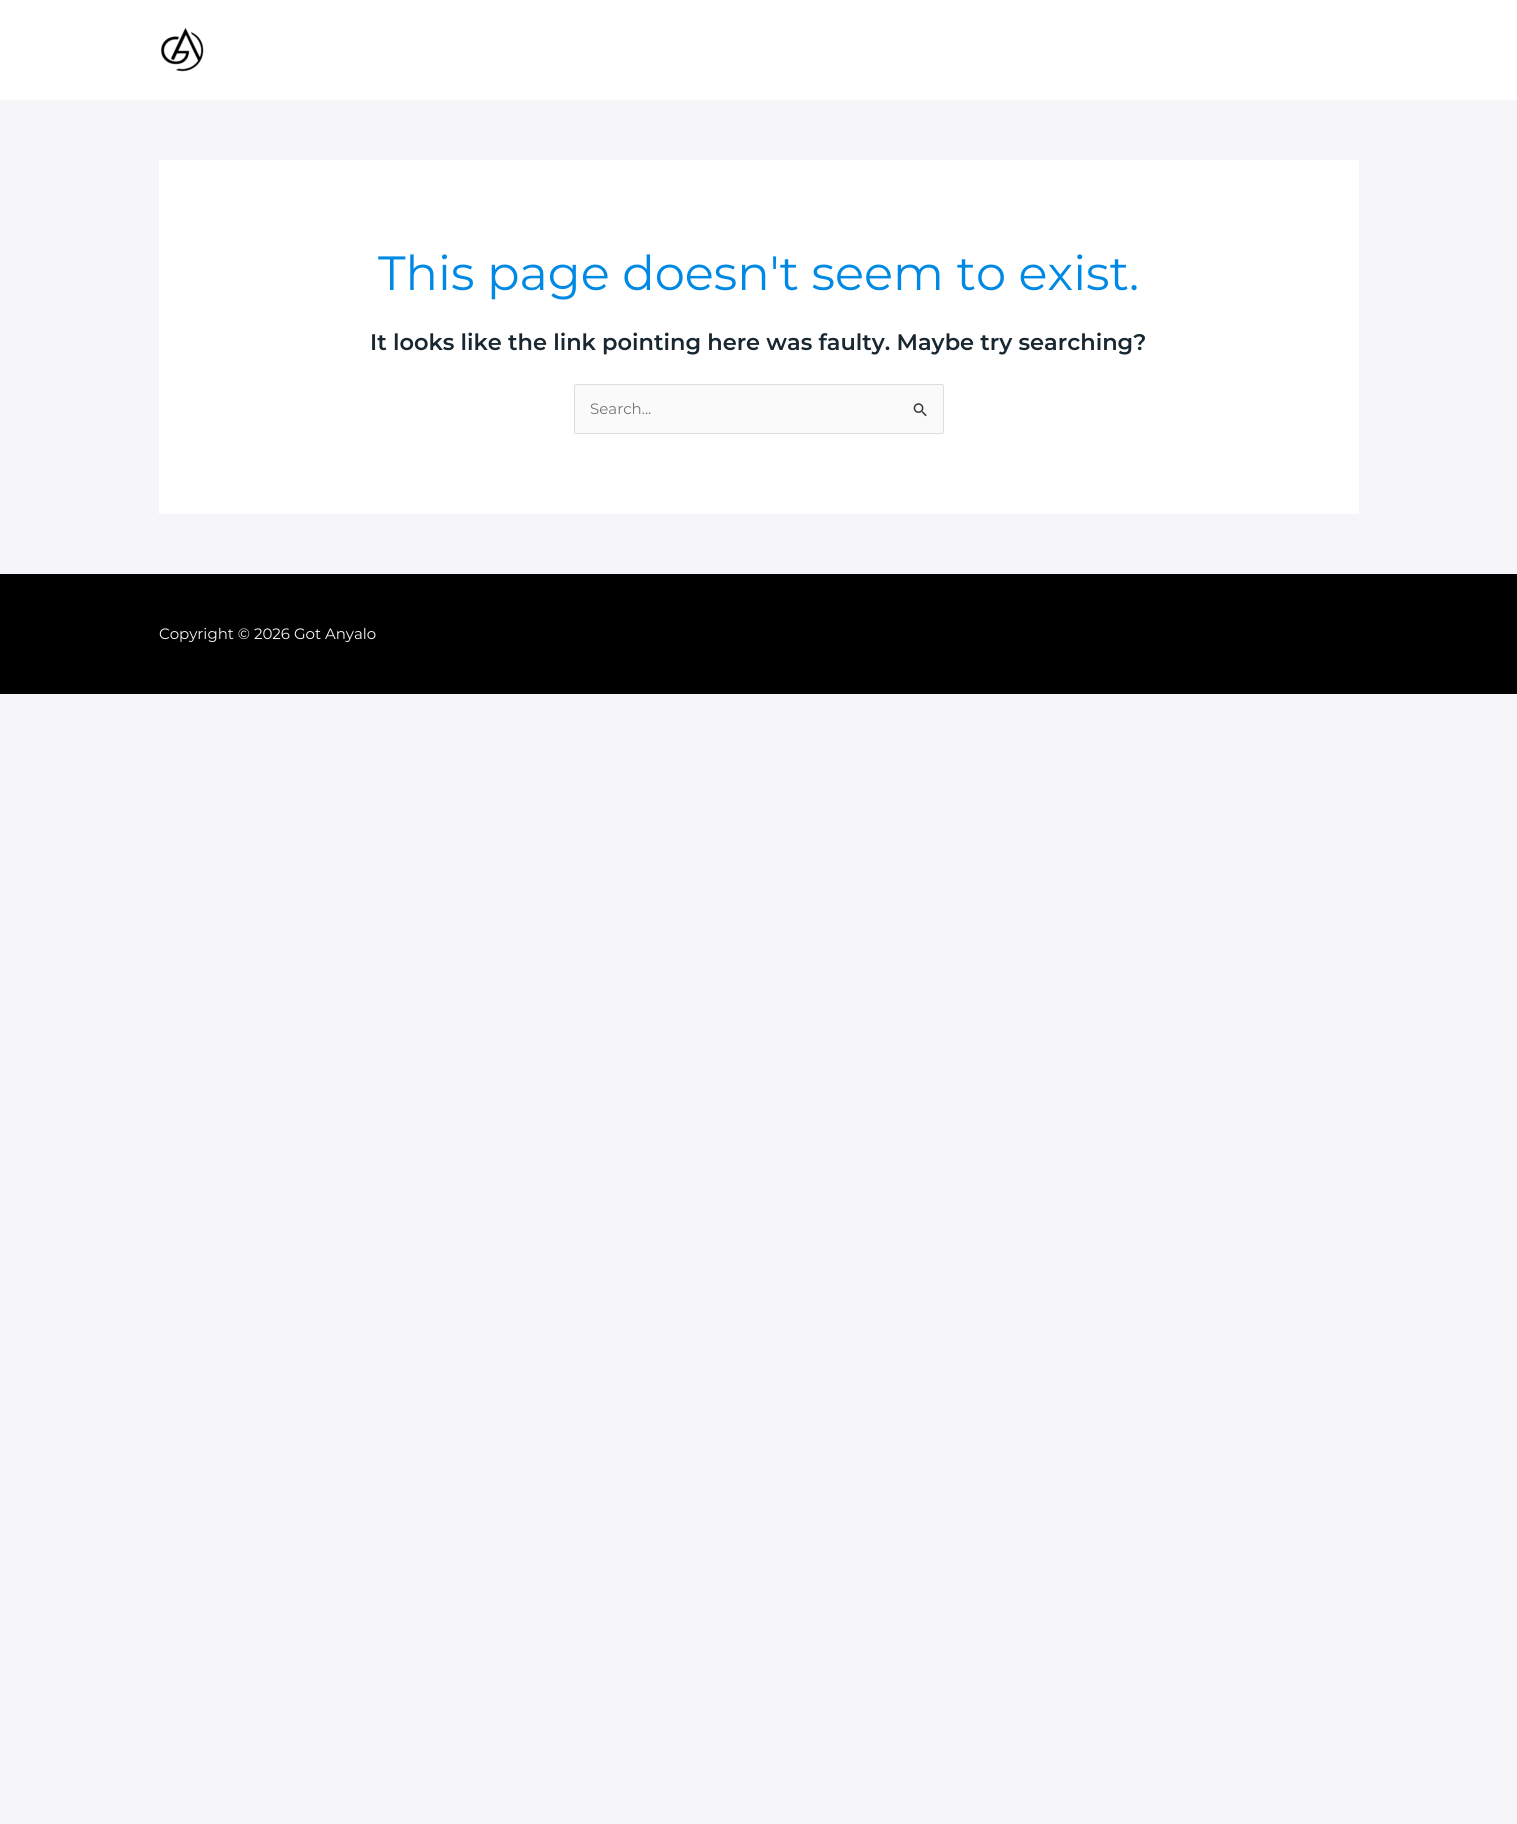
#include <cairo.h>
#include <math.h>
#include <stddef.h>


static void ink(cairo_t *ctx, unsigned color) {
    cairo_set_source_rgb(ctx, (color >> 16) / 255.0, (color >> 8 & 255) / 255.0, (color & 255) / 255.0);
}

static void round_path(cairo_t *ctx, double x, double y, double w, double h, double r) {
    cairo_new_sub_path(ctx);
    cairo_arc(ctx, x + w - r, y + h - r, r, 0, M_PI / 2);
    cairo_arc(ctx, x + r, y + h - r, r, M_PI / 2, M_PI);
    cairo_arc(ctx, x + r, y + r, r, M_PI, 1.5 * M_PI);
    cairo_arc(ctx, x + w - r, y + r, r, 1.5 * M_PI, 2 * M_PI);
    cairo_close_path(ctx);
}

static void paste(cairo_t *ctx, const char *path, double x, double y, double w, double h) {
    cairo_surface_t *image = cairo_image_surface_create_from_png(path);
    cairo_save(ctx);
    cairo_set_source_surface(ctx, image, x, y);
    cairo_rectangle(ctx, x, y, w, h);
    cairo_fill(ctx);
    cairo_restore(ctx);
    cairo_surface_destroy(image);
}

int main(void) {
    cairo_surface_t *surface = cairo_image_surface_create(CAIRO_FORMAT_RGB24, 1517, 1824);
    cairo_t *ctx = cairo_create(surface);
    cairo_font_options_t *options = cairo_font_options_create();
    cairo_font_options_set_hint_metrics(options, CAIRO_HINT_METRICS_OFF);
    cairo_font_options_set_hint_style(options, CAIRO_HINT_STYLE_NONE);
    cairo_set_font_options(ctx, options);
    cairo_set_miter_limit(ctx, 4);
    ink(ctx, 0xF6F6F8);
    cairo_paint(ctx);
    ink(ctx, 0xFFFFFF);
    cairo_rectangle(ctx, 0, 0, 1517, 100);
    cairo_fill(ctx);
    paste(ctx, "media/1.png", 160, 27, 44, 45);
    cairo_rectangle(ctx, 159, 160, 1200, 354);
    cairo_fill(ctx);
    cairo_select_font_face(ctx, "Montserrat", CAIRO_FONT_SLANT_NORMAL, CAIRO_FONT_WEIGHT_NORMAL);
    cairo_set_font_size(ctx, 48);
    ink(ctx, 0x0089E4);
    cairo_move_to(ctx, 378, 290);
    cairo_show_text(ctx, "This page doesn't seem to exist.");
    cairo_select_font_face(ctx, "Montserrat SemiBold", CAIRO_FONT_SLANT_NORMAL, CAIRO_FONT_WEIGHT_NORMAL);
    cairo_set_font_size(ctx, 22.5);
    ink(ctx, 0x192730);
    cairo_move_to(ctx, 370, 350);
    cairo_show_text(ctx, "It looks like the link pointing here was faulty. Maybe try searching?");
    ink(ctx, 0xFAFAFA);
    round_path(ctx, 574.5, 384.5, 369, 49, 1.5);
    cairo_fill_preserve(ctx);
    ink(ctx, 0xDDDDDD);
    cairo_set_line_width(ctx, 1);
    cairo_stroke(ctx);
    cairo_select_font_face(ctx, "Montserrat", CAIRO_FONT_SLANT_NORMAL, CAIRO_FONT_WEIGHT_NORMAL);
    cairo_set_font_size(ctx, 15);
    ink(ctx, 0x757575);
    cairo_move_to(ctx, 590, 414);
    cairo_show_text(ctx, "Search...");
    paste(ctx, "media/2.png", 913, 403, 14, 14);
    ink(ctx, 0x000000);
    cairo_rectangle(ctx, 0, 574, 1517, 120);
    cairo_fill(ctx);
    ink(ctx, 0xF6F6F8);
    cairo_move_to(ctx, 159, 639);
    cairo_show_text(ctx, "Copyright © 2026 Got Anyalo");
    cairo_surface_write_to_png(surface, "image.png");
    cairo_font_options_destroy(options);
    cairo_destroy(ctx);
    cairo_surface_destroy(surface);
    return 0;
}
